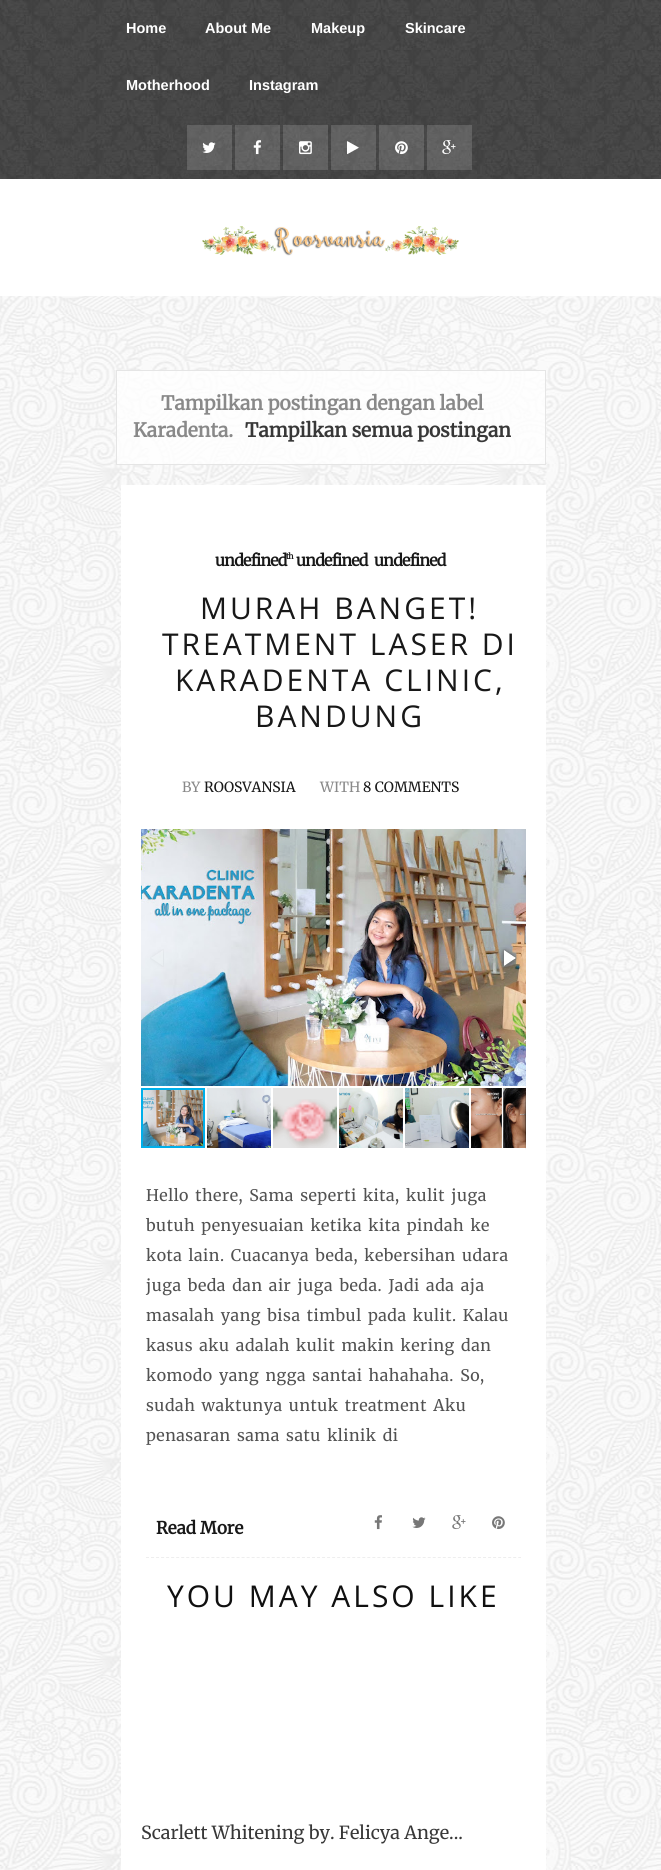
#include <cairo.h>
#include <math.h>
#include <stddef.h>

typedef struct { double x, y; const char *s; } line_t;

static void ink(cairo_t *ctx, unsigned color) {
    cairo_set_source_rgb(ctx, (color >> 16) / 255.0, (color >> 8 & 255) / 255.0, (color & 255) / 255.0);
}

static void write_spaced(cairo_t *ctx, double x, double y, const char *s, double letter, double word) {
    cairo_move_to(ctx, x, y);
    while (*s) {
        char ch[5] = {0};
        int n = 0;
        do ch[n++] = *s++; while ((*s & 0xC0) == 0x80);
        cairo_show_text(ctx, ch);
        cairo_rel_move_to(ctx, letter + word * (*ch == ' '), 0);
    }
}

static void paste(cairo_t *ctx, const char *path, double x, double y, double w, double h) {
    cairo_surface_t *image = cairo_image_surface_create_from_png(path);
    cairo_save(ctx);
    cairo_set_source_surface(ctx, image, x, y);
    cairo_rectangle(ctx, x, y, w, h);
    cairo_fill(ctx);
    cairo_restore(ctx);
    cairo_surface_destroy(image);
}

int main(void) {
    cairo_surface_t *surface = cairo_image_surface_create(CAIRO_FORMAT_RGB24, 661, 1870);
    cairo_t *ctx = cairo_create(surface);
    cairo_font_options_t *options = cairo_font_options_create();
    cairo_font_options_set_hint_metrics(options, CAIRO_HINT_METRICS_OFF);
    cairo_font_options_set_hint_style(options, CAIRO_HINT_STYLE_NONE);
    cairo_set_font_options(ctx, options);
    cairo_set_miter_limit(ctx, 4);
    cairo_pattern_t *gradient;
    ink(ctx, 0xFFFFFF);
    cairo_paint(ctx);
    paste(ctx, "media/1.png", 0, 296, 661, 1574);
    paste(ctx, "media/2.png", 0, 0, 661, 179);
    cairo_select_font_face(ctx, "Liberation Sans", CAIRO_FONT_SLANT_NORMAL, CAIRO_FONT_WEIGHT_BOLD);
    cairo_set_font_size(ctx, 14.5);
    ink(ctx, 0xFFFFFF);
    {
        static const line_t items[] = {
            {126, 33, "Home"},
            {205, 33, "About Me"},
            {311, 33, "Makeup"},
            {405, 33, "Skincare"},
            {126, 90, "Motherhood"},
            {249, 90, "Instagram"},
        };
        for (size_t i = 0; i < sizeof items / sizeof *items; i++) {
            cairo_move_to(ctx, items[i].x, items[i].y);
            cairo_show_text(ctx, items[i].s);
        }
    }
    cairo_set_source_rgba(ctx, 1, 1, 1, 0.15);
    cairo_rectangle(ctx, 187, 125, 45, 45);
    cairo_fill(ctx);
    paste(ctx, "media/3.png", 202, 142, 14, 11);
    cairo_rectangle(ctx, 235, 125, 45, 45);
    cairo_fill(ctx);
    paste(ctx, "media/4.png", 253, 140, 9, 15);
    cairo_rectangle(ctx, 283, 125, 45, 45);
    cairo_fill(ctx);
    paste(ctx, "media/5.png", 299, 141, 13, 14);
    cairo_rectangle(ctx, 331, 125, 45, 45);
    cairo_fill(ctx);
    paste(ctx, "media/6.png", 347, 141, 12, 14);
    cairo_rectangle(ctx, 379, 125, 45, 45);
    cairo_fill(ctx);
    paste(ctx, "media/7.png", 395, 141, 13, 14);
    cairo_rectangle(ctx, 427, 125, 45, 45);
    cairo_fill(ctx);
    paste(ctx, "media/8.png", 442, 140, 14, 15);
    paste(ctx, "media/9.png", 202, 226, 257, 30);
    cairo_rectangle(ctx, 116.5, 370.5, 429, 94);
    ink(ctx, 0xE5E5E5);
    cairo_set_line_width(ctx, 1);
    cairo_stroke(ctx);
    cairo_set_source_rgba(ctx, 1, 1, 1, 0.8);
    cairo_rectangle(ctx, 117, 371, 428, 93);
    cairo_fill(ctx);
    cairo_select_font_face(ctx, "Merriweather", CAIRO_FONT_SLANT_NORMAL, CAIRO_FONT_WEIGHT_BOLD);
    cairo_set_font_size(ctx, 19.25);
    ink(ctx, 0x898989);
    cairo_move_to(ctx, 161, 410);
    cairo_show_text(ctx, "Tampilkan postingan dengan label");
    cairo_move_to(ctx, 133, 437);
    cairo_show_text(ctx, "Karadenta.");
    ink(ctx, 0x383838);
    cairo_move_to(ctx, 245, 437);
    cairo_show_text(ctx, "Tampilkan semua postingan");
    ink(ctx, 0xFFFFFF);
    cairo_rectangle(ctx, 121, 485, 425, 1385);
    cairo_fill(ctx);
    cairo_set_font_size(ctx, 16);
    ink(ctx, 0x181818);
    write_spaced(ctx, 215, 566, "undefined", -0.75, 0);
    cairo_set_font_size(ctx, 8);
    write_spaced(ctx, 286, 559, "th", -0.75, 0);
    cairo_set_font_size(ctx, 16);
    write_spaced(ctx, 296, 566, "undefined", -0.75, 0);
    write_spaced(ctx, 374, 566, "undefined", -0.75, 0);
    cairo_select_font_face(ctx, "Open Sans", CAIRO_FONT_SLANT_NORMAL, CAIRO_FONT_WEIGHT_NORMAL);
    cairo_set_font_size(ctx, 30);
    {
        static const line_t items[] = {
            {200, 619, "MURAH BANGET!"},
            {162, 655, "TREATMENT LASER DI"},
            {175, 691, "KARADENTA CLINIC,"},
            {255, 727, "BANDUNG"},
        };
        for (size_t i = 0; i < sizeof items / sizeof *items; i++) {
            write_spaced(ctx, items[i].x, items[i].y, items[i].s, 3, 0);
        }
    }
    cairo_select_font_face(ctx, "Merriweather", CAIRO_FONT_SLANT_NORMAL, CAIRO_FONT_WEIGHT_NORMAL);
    cairo_set_font_size(ctx, 14);
    ink(ctx, 0x898989);
    cairo_move_to(ctx, 182, 792);
    cairo_show_text(ctx, "BY");
    ink(ctx, 0x181818);
    cairo_move_to(ctx, 204, 792);
    cairo_show_text(ctx, "ROOSVANSIA");
    ink(ctx, 0x898989);
    cairo_move_to(ctx, 320, 792);
    cairo_show_text(ctx, "WITH");
    ink(ctx, 0x181818);
    cairo_move_to(ctx, 363, 792);
    cairo_show_text(ctx, "8 COMMENTS");
    paste(ctx, "media/10.png", 141, 829, 385, 257);
    paste(ctx, "media/11.png", 150, 949, 14, 18);
    paste(ctx, "media/12.png", 499, 947, 20, 21);
    paste(ctx, "media/17.png", 471, 1088, 55, 60);
    gradient = cairo_pattern_create_radial(0, 0, 0, 0, 0, 1);
    cairo_pattern_set_matrix(gradient, &(cairo_matrix_t){1.0 / 5, 0, 0, 1.0 / 32, -1.0 * 526 / 5, -1.0 * 1118 / 32});
    cairo_pattern_add_color_stop_rgba(gradient, 0, 0, 0, 0, 0.4);
    cairo_pattern_add_color_stop_rgba(gradient, 1, 0, 0, 0, 0);
    cairo_set_source(ctx, gradient);
    cairo_pattern_destroy(gradient);
    cairo_rectangle(ctx, 521, 1086, 5, 64);
    cairo_fill(ctx);
    gradient = cairo_pattern_create_linear(526, 1086, 526, 1150);
    cairo_pattern_add_color_stop_rgba(gradient, 0, 0, 0, 0, 0);
    cairo_pattern_add_color_stop_rgba(gradient, 0.25, 0, 0, 0, 0.2);
    cairo_pattern_add_color_stop_rgba(gradient, 0.75, 0, 0, 0, 0.3);
    cairo_pattern_add_color_stop_rgba(gradient, 1, 0, 0, 0, 0);
    cairo_set_source(ctx, gradient);
    cairo_pattern_destroy(gradient);
    cairo_rectangle(ctx, 525, 1086, 1, 64);
    cairo_fill(ctx);
    paste(ctx, "media/18.png", 143, 1090, 60, 56);
    cairo_rectangle(ctx, 142, 1089, 62, 58);
    ink(ctx, 0x00AFEA);
    cairo_set_line_width(ctx, 2);
    cairo_stroke(ctx);
    paste(ctx, "media/13.png", 207, 1088, 64, 60);
    ink(ctx, 0xE5E5E5);
    cairo_rectangle(ctx, 273, 1088, 64, 60);
    cairo_fill(ctx);
    paste(ctx, "media/14.png", 273, 1099, 64, 49);
    paste(ctx, "media/15.png", 339, 1088, 64, 60);
    paste(ctx, "media/16.png", 405, 1088, 64, 60);
    cairo_set_font_size(ctx, 16);
    ink(ctx, 0x525252);
    {
        static const line_t items[] = {
            {146, 1201, "Hello there, Sama seperti kita, kulit juga"},
            {146, 1231, "butuh penyesuaian ketika kita pindah ke"},
            {146, 1261, "kota lain. Cuacanya beda, kebersihan udara"},
            {146, 1291, "juga beda dan air juga beda. Jadi ada aja"},
            {146, 1321, "masalah yang bisa timbul pada kulit. Kalau"},
            {146, 1351, "kasus aku adalah kulit makin kering dan"},
            {146, 1381, "komodo yang ngga santai hahahaha. So,"},
            {146, 1411, "sudah waktunya untuk treatment Aku"},
            {146, 1441, "penasaran sama satu klinik di"},
        };
        for (size_t i = 0; i < sizeof items / sizeof *items; i++) {
            write_spaced(ctx, items[i].x, items[i].y, items[i].s, 0.5, 2);
        }
    }
    cairo_new_path(ctx);
    cairo_move_to(ctx, 146, 1557.5);
    cairo_line_to(ctx, 521, 1557.5);
    ink(ctx, 0xEEEEEE);
    cairo_set_line_width(ctx, 1);
    cairo_set_dash(ctx, (double[]){3, 2.03}, 2, 0);
    cairo_stroke(ctx);
    cairo_select_font_face(ctx, "Merriweather", CAIRO_FONT_SLANT_NORMAL, CAIRO_FONT_WEIGHT_BOLD);
    cairo_set_font_size(ctx, 17);
    ink(ctx, 0x181818);
    cairo_move_to(ctx, 156, 1534);
    cairo_show_text(ctx, "Read More");
    paste(ctx, "media/19.png", 374, 1515, 8, 15);
    paste(ctx, "media/20.png", 412, 1517, 14, 11);
    paste(ctx, "media/21.png", 452, 1515, 14, 15);
    paste(ctx, "media/22.png", 492, 1516, 13, 14);
    cairo_select_font_face(ctx, "Open Sans", CAIRO_FONT_SLANT_NORMAL, CAIRO_FONT_WEIGHT_NORMAL);
    cairo_set_font_size(ctx, 30);
    ink(ctx, 0x101010);
    write_spaced(ctx, 167, 1607, "YOU MAY ALSO LIKE", 3, 0);
    cairo_select_font_face(ctx, "Merriweather", CAIRO_FONT_SLANT_NORMAL, CAIRO_FONT_WEIGHT_NORMAL);
    cairo_set_font_size(ctx, 18);
    ink(ctx, 0x383838);
    cairo_move_to(ctx, 141, 1839);
    cairo_show_text(ctx, "Scarlett Whitening by. Felicya Ange...");
    cairo_surface_write_to_png(surface, "image.png");
    cairo_font_options_destroy(options);
    cairo_destroy(ctx);
    cairo_surface_destroy(surface);
    return 0;
}
